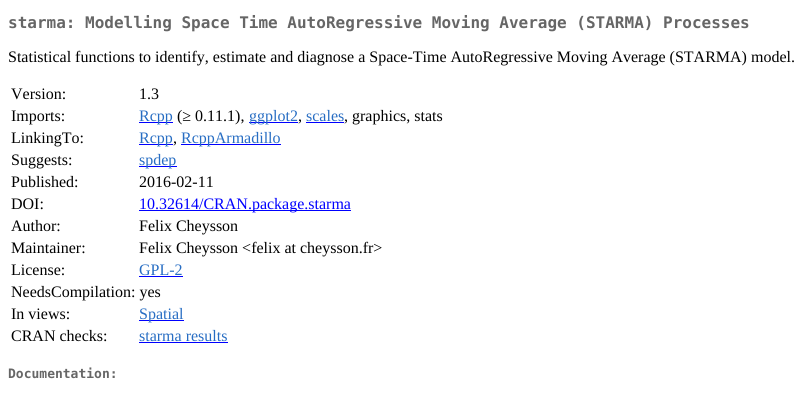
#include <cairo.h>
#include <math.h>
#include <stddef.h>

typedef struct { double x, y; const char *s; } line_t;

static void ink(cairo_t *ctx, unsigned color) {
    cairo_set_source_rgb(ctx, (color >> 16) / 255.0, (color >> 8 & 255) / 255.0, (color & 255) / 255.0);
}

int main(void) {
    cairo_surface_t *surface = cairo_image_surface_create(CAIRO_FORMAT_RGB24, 805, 403);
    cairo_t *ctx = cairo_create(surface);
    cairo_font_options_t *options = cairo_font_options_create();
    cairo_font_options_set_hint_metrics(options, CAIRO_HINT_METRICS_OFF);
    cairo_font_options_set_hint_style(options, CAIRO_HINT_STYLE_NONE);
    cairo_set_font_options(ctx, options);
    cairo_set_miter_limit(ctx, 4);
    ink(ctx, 0xFFFFFF);
    cairo_paint(ctx);
    cairo_select_font_face(ctx, "DejaVu Sans Mono", CAIRO_FONT_SLANT_NORMAL, CAIRO_FONT_WEIGHT_BOLD);
    cairo_set_font_size(ctx, 16);
    ink(ctx, 0x666666);
    cairo_move_to(ctx, 8, 28);
    cairo_show_text(ctx, "starma: Modelling Space Time AutoRegressive Moving Average (STARMA) Processes");
    cairo_select_font_face(ctx, "Liberation Serif", CAIRO_FONT_SLANT_NORMAL, CAIRO_FONT_WEIGHT_NORMAL);
    ink(ctx, 0x000000);
    {
        static const line_t items[] = {
            {8, 62, "Statistical functions to identify, estimate and diagnose a Space-Time AutoRegressive Moving Average (STARMA) model."},
            {11, 99, "Version:"},
            {139, 99, "1.3"},
            {11, 121, "Imports:"},
        };
        for (size_t i = 0; i < sizeof items / sizeof *items; i++) {
            cairo_move_to(ctx, items[i].x, items[i].y);
            cairo_show_text(ctx, items[i].s);
        }
    }
    ink(ctx, 0x0000FF);
    cairo_rectangle(ctx, 139, 122, 34, 1);
    cairo_fill(ctx);
    ink(ctx, 0x276DC3);
    cairo_move_to(ctx, 139, 121);
    cairo_show_text(ctx, "Rcpp");
    ink(ctx, 0x000000);
    cairo_move_to(ctx, 177, 121);
    cairo_show_text(ctx, "(≥ 0.11.1),");
    ink(ctx, 0x0000FF);
    cairo_rectangle(ctx, 249, 122, 49, 1);
    cairo_fill(ctx);
    ink(ctx, 0x276DC3);
    cairo_move_to(ctx, 249, 121);
    cairo_show_text(ctx, "ggplot2");
    ink(ctx, 0x000000);
    cairo_move_to(ctx, 298, 121);
    cairo_show_text(ctx, ",");
    ink(ctx, 0x276DC3);
    cairo_move_to(ctx, 306, 121);
    cairo_show_text(ctx, "scales");
    ink(ctx, 0x0000FF);
    cairo_rectangle(ctx, 306, 122, 38, 1);
    cairo_fill(ctx);
    ink(ctx, 0x000000);
    cairo_move_to(ctx, 344, 121);
    cairo_show_text(ctx, ", graphics, stats");
    cairo_move_to(ctx, 11, 143);
    cairo_show_text(ctx, "LinkingTo:");
    ink(ctx, 0x0000FF);
    cairo_rectangle(ctx, 139, 144, 34, 1);
    cairo_fill(ctx);
    ink(ctx, 0x276DC3);
    cairo_move_to(ctx, 139, 143);
    cairo_show_text(ctx, "Rcpp");
    ink(ctx, 0x000000);
    cairo_move_to(ctx, 173, 143);
    cairo_show_text(ctx, ",");
    ink(ctx, 0x0000FF);
    cairo_rectangle(ctx, 181, 144, 100, 1);
    cairo_fill(ctx);
    ink(ctx, 0x276DC3);
    cairo_move_to(ctx, 181, 143);
    cairo_show_text(ctx, "RcppArmadillo");
    ink(ctx, 0x000000);
    cairo_move_to(ctx, 11, 165);
    cairo_show_text(ctx, "Suggests:");
    ink(ctx, 0x0000FF);
    cairo_rectangle(ctx, 139, 166, 38, 1);
    cairo_fill(ctx);
    ink(ctx, 0x276DC3);
    cairo_move_to(ctx, 139, 165);
    cairo_show_text(ctx, "spdep");
    ink(ctx, 0x000000);
    {
        static const line_t items[] = {
            {11, 187, "Published:"},
            {139, 187, "2016-02-11"},
            {11, 209, "DOI:"},
        };
        for (size_t i = 0; i < sizeof items / sizeof *items; i++) {
            cairo_move_to(ctx, items[i].x, items[i].y);
            cairo_show_text(ctx, items[i].s);
        }
    }
    ink(ctx, 0x0000FF);
    cairo_rectangle(ctx, 139, 210, 212, 1);
    cairo_fill(ctx);
    cairo_move_to(ctx, 139, 209);
    cairo_show_text(ctx, "10.32614/CRAN.package.starma");
    ink(ctx, 0x000000);
    {
        static const line_t items[] = {
            {11, 231, "Author:"},
            {139, 231, "Felix Cheysson"},
            {11, 253, "Maintainer:"},
            {139, 253, "Felix Cheysson <felix at cheysson.fr>"},
            {11, 275, "License:"},
        };
        for (size_t i = 0; i < sizeof items / sizeof *items; i++) {
            cairo_move_to(ctx, items[i].x, items[i].y);
            cairo_show_text(ctx, items[i].s);
        }
    }
    ink(ctx, 0x276DC3);
    cairo_move_to(ctx, 139, 275);
    cairo_show_text(ctx, "GPL-2");
    ink(ctx, 0x0000FF);
    cairo_rectangle(ctx, 139, 276, 44, 1);
    cairo_fill(ctx);
    ink(ctx, 0x000000);
    cairo_move_to(ctx, 11, 297);
    cairo_show_text(ctx, "NeedsCompilation: yes");
    cairo_move_to(ctx, 11, 319);
    cairo_show_text(ctx, "In views:");
    ink(ctx, 0x0000FF);
    cairo_rectangle(ctx, 139, 320, 45, 1);
    cairo_fill(ctx);
    ink(ctx, 0x276DC3);
    cairo_move_to(ctx, 139, 319);
    cairo_show_text(ctx, "Spatial");
    ink(ctx, 0x000000);
    cairo_move_to(ctx, 11, 341);
    cairo_show_text(ctx, "CRAN checks:");
    ink(ctx, 0x276DC3);
    cairo_move_to(ctx, 139, 341);
    cairo_show_text(ctx, "starma results");
    ink(ctx, 0x0000FF);
    cairo_rectangle(ctx, 139, 342, 89, 1);
    cairo_fill(ctx);
    cairo_select_font_face(ctx, "DejaVu Sans Mono", CAIRO_FONT_SLANT_NORMAL, CAIRO_FONT_WEIGHT_BOLD);
    cairo_set_font_size(ctx, 13);
    ink(ctx, 0x666666);
    cairo_move_to(ctx, 8, 378);
    cairo_show_text(ctx, "Documentation:");
    cairo_surface_write_to_png(surface, "image.png");
    cairo_font_options_destroy(options);
    cairo_destroy(ctx);
    cairo_surface_destroy(surface);
    return 0;
}
